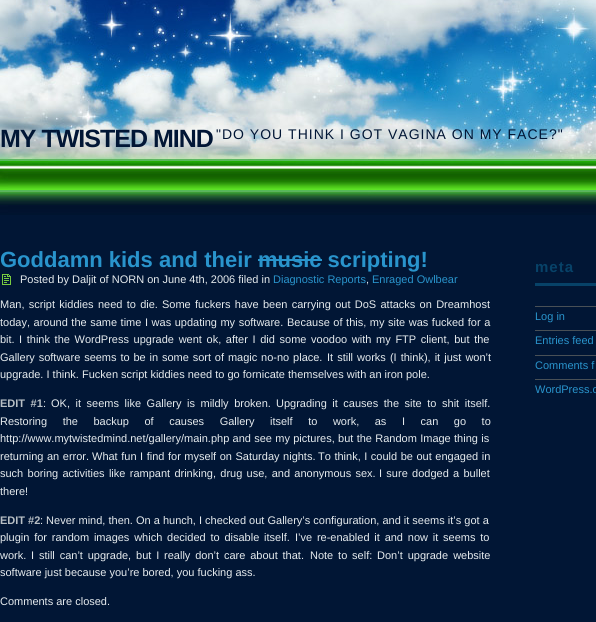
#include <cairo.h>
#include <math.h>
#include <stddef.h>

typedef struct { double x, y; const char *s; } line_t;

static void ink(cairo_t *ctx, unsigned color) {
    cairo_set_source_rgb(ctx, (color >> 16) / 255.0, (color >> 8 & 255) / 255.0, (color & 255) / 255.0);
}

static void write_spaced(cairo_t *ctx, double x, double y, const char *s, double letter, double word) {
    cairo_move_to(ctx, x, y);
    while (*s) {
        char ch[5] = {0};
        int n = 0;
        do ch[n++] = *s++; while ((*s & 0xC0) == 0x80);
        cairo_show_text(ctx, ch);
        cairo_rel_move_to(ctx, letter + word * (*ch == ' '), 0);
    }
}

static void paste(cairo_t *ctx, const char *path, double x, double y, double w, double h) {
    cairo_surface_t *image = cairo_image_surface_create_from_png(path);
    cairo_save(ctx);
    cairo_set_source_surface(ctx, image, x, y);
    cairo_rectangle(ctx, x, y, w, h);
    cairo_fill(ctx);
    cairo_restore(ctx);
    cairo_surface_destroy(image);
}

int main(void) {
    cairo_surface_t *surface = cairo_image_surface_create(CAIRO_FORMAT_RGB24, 596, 622);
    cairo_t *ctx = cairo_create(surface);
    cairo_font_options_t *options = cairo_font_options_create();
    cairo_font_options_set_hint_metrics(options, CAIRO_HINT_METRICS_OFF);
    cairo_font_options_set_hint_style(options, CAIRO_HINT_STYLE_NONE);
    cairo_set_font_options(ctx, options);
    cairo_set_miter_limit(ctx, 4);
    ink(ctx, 0x011635);
    cairo_paint(ctx);
    paste(ctx, "media/1.png", 0, 0, 596, 215);
    cairo_select_font_face(ctx, "Liberation Sans", CAIRO_FONT_SLANT_NORMAL, CAIRO_FONT_WEIGHT_BOLD);
    cairo_set_font_size(ctx, 25);
    ink(ctx, 0x011635);
    write_spaced(ctx, 0, 147, "MY TWISTED MIND", -1, 0);
    cairo_select_font_face(ctx, "Liberation Sans", CAIRO_FONT_SLANT_NORMAL, CAIRO_FONT_WEIGHT_NORMAL);
    cairo_set_font_size(ctx, 14);
    write_spaced(ctx, 216, 139, "\"DO YOU THINK I GOT VAGINA ON MY FACE?\"", 1, 0);
    cairo_select_font_face(ctx, "Liberation Sans", CAIRO_FONT_SLANT_NORMAL, CAIRO_FONT_WEIGHT_BOLD);
    cairo_set_font_size(ctx, 22);
    ink(ctx, 0x2994CC);
    cairo_move_to(ctx, 0, 267);
    cairo_show_text(ctx, "Goddamn kids and their music scripting!");
    cairo_rectangle(ctx, 258, 259, 64, 2);
    cairo_fill(ctx);
    paste(ctx, "media/2.png", 2, 274, 9, 11);
    cairo_select_font_face(ctx, "Liberation Sans", CAIRO_FONT_SLANT_NORMAL, CAIRO_FONT_WEIGHT_NORMAL);
    cairo_set_font_size(ctx, 11);
    ink(ctx, 0xE6EBEE);
    cairo_move_to(ctx, 20, 283);
    cairo_show_text(ctx, "Posted by Daljit of NORN on June 4th, 2006 filed in");
    ink(ctx, 0x2994CC);
    cairo_move_to(ctx, 273, 283);
    cairo_show_text(ctx, "Diagnostic Reports");
    ink(ctx, 0xE6EBEE);
    cairo_move_to(ctx, 366, 283);
    cairo_show_text(ctx, ",");
    ink(ctx, 0x2994CC);
    cairo_move_to(ctx, 372, 283);
    cairo_show_text(ctx, "Enraged Owlbear");
    ink(ctx, 0xE6EBEE);
    write_spaced(ctx, 0, 308, "Man, script kiddies need to die.", 0, 1.25);
    write_spaced(ctx, 162, 308, "Some fuckers have been carrying out DoS attacks on Dreamhost", 0, 1.25);
    write_spaced(ctx, 0, 326, "today, around the same time I was updating my software.", 0, 0.5);
    write_spaced(ctx, 287, 326, "Because of this, my site was fucked for a", 0, 0.5);
    cairo_move_to(ctx, 0, 343);
    cairo_show_text(ctx, "bit.");
    write_spaced(ctx, 19, 343, "I think the WordPress upgrade went ok, after I did some voodoo with my FTP client, but the", 0, 1.6);
    write_spaced(ctx, 0, 361, "Gallery software seems to be in some sort of magic no-no place.", 0, 0.8);
    write_spaced(ctx, 327, 361, "It still works (I think), it just won’t", 0, 1);
    cairo_move_to(ctx, 0, 378);
    cairo_show_text(ctx, "upgrade. I think. Fucken script kiddies need to go fornicate themselves with an iron pole.");
    cairo_select_font_face(ctx, "Liberation Sans", CAIRO_FONT_SLANT_NORMAL, CAIRO_FONT_WEIGHT_BOLD);
    ink(ctx, 0xB8BFC5);
    write_spaced(ctx, 0, 407, "EDIT #1", 0, 2.5);
    cairo_select_font_face(ctx, "Liberation Sans", CAIRO_FONT_SLANT_NORMAL, CAIRO_FONT_WEIGHT_NORMAL);
    ink(ctx, 0xE6EBEE);
    cairo_move_to(ctx, 43, 407);
    cairo_show_text(ctx, ":");
    write_spaced(ctx, 51, 407, "OK, it seems like Gallery is mildly broken.", 0, 2.5);
    write_spaced(ctx, 276, 407, "Upgrading it causes the site to shit itself.", 0, 2.5);
    write_spaced(ctx, 0, 425, "Restoring the backup of causes Gallery", 0, 12.5);
    write_spaced(ctx, 270, 425, "itself to work, as I can go to", 0, 12.5);
    write_spaced(ctx, 0, 442, "http://www.mytwistedmind.net/gallery/main.php and see my pictures, but the Random Image thing is", 0, 0.25);
    {
        static const line_t items[] = {
            {0, 460, "returning an error."},
            {92, 460, "What fun I find for myself on Saturday nights."},
            {318, 460, "To think, I could be out engaged in"},
        };
        for (size_t i = 0; i < sizeof items / sizeof *items; i++) {
            write_spaced(ctx, items[i].x, items[i].y, items[i].s, 0, 0.5);
        }
    }
    write_spaced(ctx, 0, 477, "such boring activities like rampant drinking, drug use, and anonymous sex.", 0, 1.25);
    write_spaced(ctx, 379, 477, "I sure dodged a bullet", 0, 1.25);
    cairo_move_to(ctx, 0, 495);
    cairo_show_text(ctx, "there!");
    cairo_select_font_face(ctx, "Liberation Sans", CAIRO_FONT_SLANT_NORMAL, CAIRO_FONT_WEIGHT_BOLD);
    ink(ctx, 0xB8BFC5);
    cairo_move_to(ctx, 0, 524);
    cairo_show_text(ctx, "EDIT #2");
    cairo_select_font_face(ctx, "Liberation Sans", CAIRO_FONT_SLANT_NORMAL, CAIRO_FONT_WEIGHT_NORMAL);
    ink(ctx, 0xE6EBEE);
    cairo_move_to(ctx, 40, 524);
    cairo_show_text(ctx, ": Never mind, then. On a hunch, I checked out Gallery’s configuration, and it seems it’s got a");
    write_spaced(ctx, 0, 541, "plugin for random images which decided to disable itself.", 0, 1.75);
    write_spaced(ctx, 295, 541, "I’ve re-enabled it and now it seems to", 0, 1.75);
    cairo_move_to(ctx, 0, 559);
    cairo_show_text(ctx, "work.");
    write_spaced(ctx, 31, 559, "I still can’t upgrade, but I really don’t care about that.", 0, 1.8);
    write_spaced(ctx, 310, 559, "Note to self:", 0, 1.8);
    write_spaced(ctx, 377, 559, "Don’t upgrade website", 0, 2);
    cairo_move_to(ctx, 0, 576);
    cairo_show_text(ctx, "software just because you’re bored, you fucking ass.");
    cairo_move_to(ctx, 0, 605);
    cairo_show_text(ctx, "Comments are closed.");
    ink(ctx, 0x074268);
    cairo_rectangle(ctx, 535, 283, 61, 3);
    cairo_fill(ctx);
    cairo_select_font_face(ctx, "Liberation Sans", CAIRO_FONT_SLANT_NORMAL, CAIRO_FONT_WEIGHT_BOLD);
    cairo_set_font_size(ctx, 15);
    write_spaced(ctx, 535, 272, "meta", 1, 0);
    ink(ctx, 0x495056);
    cairo_rectangle(ctx, 535, 306, 61, 1);
    cairo_fill(ctx);
    cairo_select_font_face(ctx, "Liberation Sans", CAIRO_FONT_SLANT_NORMAL, CAIRO_FONT_WEIGHT_NORMAL);
    cairo_set_font_size(ctx, 11);
    ink(ctx, 0x2994CC);
    cairo_move_to(ctx, 535, 320);
    cairo_show_text(ctx, "Log in");
    ink(ctx, 0x495056);
    cairo_rectangle(ctx, 535, 330, 61, 1);
    cairo_fill(ctx);
    ink(ctx, 0x2994CC);
    cairo_move_to(ctx, 535, 344);
    cairo_show_text(ctx, "Entries feed");
    ink(ctx, 0x495056);
    cairo_rectangle(ctx, 535, 355, 61, 1);
    cairo_fill(ctx);
    ink(ctx, 0x2994CC);
    cairo_move_to(ctx, 535, 369);
    cairo_show_text(ctx, "Comments f");
    ink(ctx, 0x495056);
    cairo_rectangle(ctx, 535, 379, 61, 1);
    cairo_fill(ctx);
    ink(ctx, 0x2994CC);
    cairo_move_to(ctx, 535, 393);
    cairo_show_text(ctx, "WordPress.o");
    cairo_surface_write_to_png(surface, "image.png");
    cairo_font_options_destroy(options);
    cairo_destroy(ctx);
    cairo_surface_destroy(surface);
    return 0;
}
